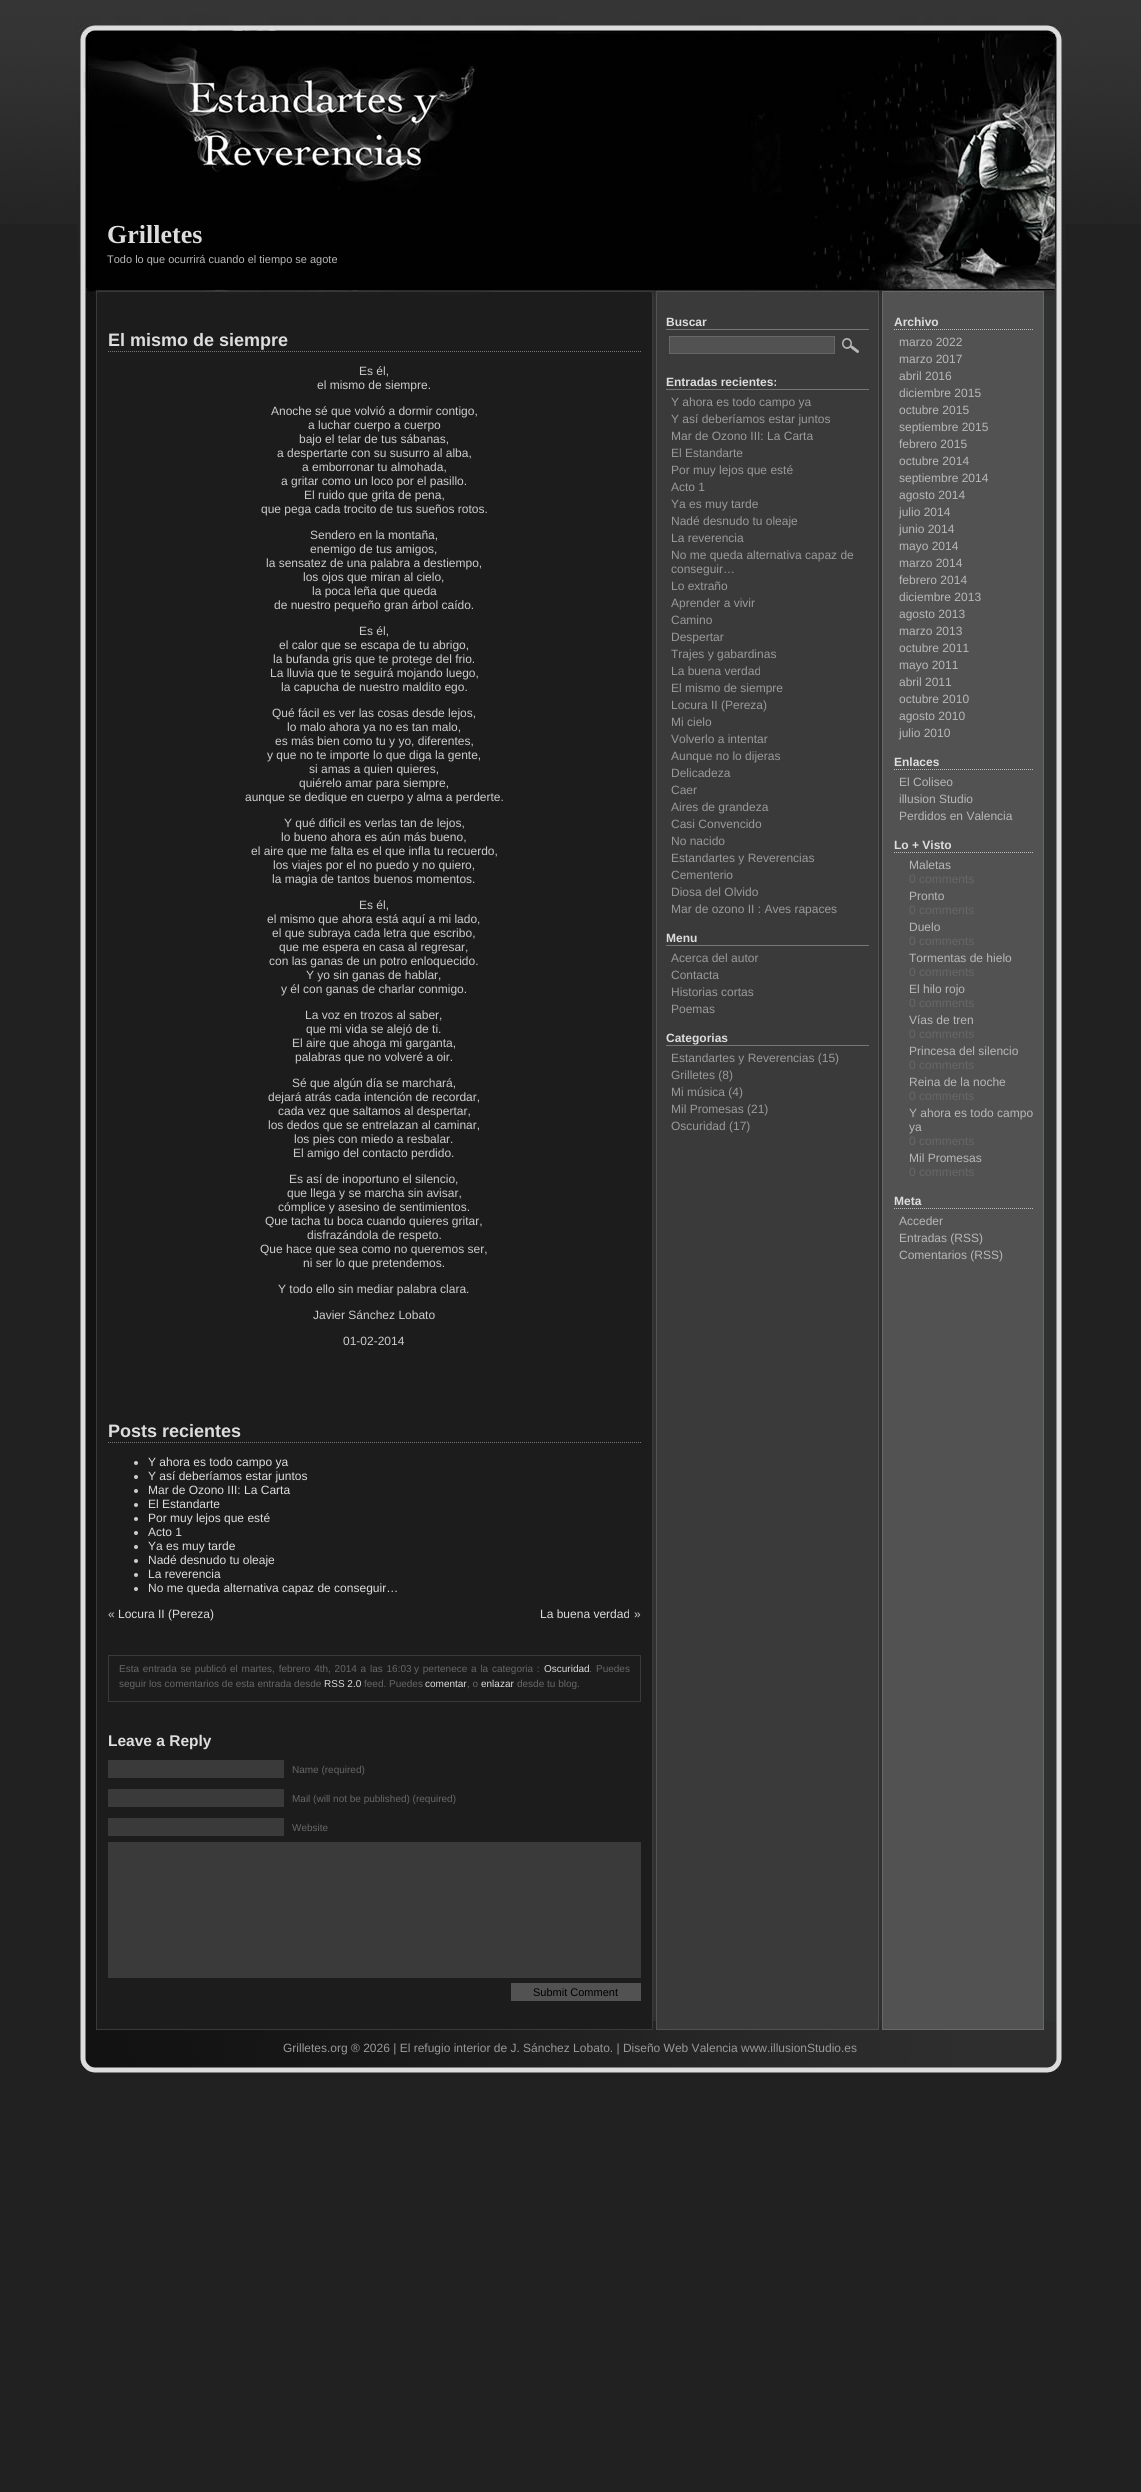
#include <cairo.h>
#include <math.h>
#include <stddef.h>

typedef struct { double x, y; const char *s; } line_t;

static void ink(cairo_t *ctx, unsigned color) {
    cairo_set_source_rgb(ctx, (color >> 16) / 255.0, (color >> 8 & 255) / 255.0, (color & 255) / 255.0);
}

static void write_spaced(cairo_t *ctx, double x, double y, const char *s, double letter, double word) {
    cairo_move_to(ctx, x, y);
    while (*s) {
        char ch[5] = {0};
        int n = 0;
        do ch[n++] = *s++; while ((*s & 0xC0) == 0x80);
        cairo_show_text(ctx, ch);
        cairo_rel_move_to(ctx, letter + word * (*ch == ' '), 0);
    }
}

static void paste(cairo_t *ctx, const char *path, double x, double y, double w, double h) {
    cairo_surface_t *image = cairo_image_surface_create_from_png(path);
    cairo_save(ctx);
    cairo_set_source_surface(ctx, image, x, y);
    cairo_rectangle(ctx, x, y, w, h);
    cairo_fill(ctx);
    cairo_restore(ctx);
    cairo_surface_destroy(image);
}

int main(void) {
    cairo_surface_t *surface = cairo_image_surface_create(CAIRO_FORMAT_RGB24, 1141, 2492);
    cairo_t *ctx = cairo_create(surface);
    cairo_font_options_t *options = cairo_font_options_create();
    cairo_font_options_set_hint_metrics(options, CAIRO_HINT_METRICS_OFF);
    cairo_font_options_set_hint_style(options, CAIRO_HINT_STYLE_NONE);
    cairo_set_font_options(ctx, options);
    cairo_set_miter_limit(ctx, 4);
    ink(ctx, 0x212121);
    cairo_paint(ctx);
    paste(ctx, "media/1.png", 0, 0, 1141, 224);
    paste(ctx, "media/2.png", 77, 296, 988, 1813);
    paste(ctx, "media/3.png", 77, 0, 988, 296);
    cairo_select_font_face(ctx, "Liberation Serif", CAIRO_FONT_SLANT_NORMAL, CAIRO_FONT_WEIGHT_BOLD);
    cairo_set_font_size(ctx, 26);
    ink(ctx, 0xDDDDDD);
    cairo_move_to(ctx, 107, 243);
    cairo_show_text(ctx, "Grilletes");
    cairo_select_font_face(ctx, "Liberation Sans", CAIRO_FONT_SLANT_NORMAL, CAIRO_FONT_WEIGHT_NORMAL);
    cairo_set_font_size(ctx, 11);
    ink(ctx, 0xB7B7B7);
    cairo_move_to(ctx, 107, 263);
    cairo_show_text(ctx, "Todo lo que ocurrirá cuando el tiempo se agote");
    cairo_new_path(ctx);
    cairo_move_to(ctx, 108, 351.5);
    cairo_line_to(ctx, 641, 351.5);
    ink(ctx, 0x767676);
    cairo_set_line_width(ctx, 1);
    cairo_set_dash(ctx, (double[]){1, 1}, 2, 0);
    cairo_stroke(ctx);
    cairo_select_font_face(ctx, "Liberation Sans", CAIRO_FONT_SLANT_NORMAL, CAIRO_FONT_WEIGHT_BOLD);
    cairo_set_font_size(ctx, 18);
    ink(ctx, 0xDDDDDD);
    cairo_move_to(ctx, 108, 346);
    cairo_show_text(ctx, "El mismo de siempre");
    cairo_select_font_face(ctx, "Liberation Sans", CAIRO_FONT_SLANT_NORMAL, CAIRO_FONT_WEIGHT_NORMAL);
    cairo_set_font_size(ctx, 12);
    ink(ctx, 0xCCCCCC);
    {
        static const line_t items[] = {
            {359, 375, "Es él,"},
            {317, 389, "el mismo de siempre."},
            {271, 415, "Anoche sé que volvió a dormir contigo,"},
            {308, 429, "a luchar cuerpo a cuerpo"},
            {299, 443, "bajo el telar de tus sábanas,"},
            {277, 457, "a despertarte con su susurro al alba,"},
            {302, 471, "a emborronar tu almohada,"},
            {281, 485, "a gritar como un loco por el pasillo."},
            {304, 499, "El ruido que grita de pena,"},
            {261, 513, "que pega cada trocito de tus sueños rotos."},
            {310, 539, "Sendero en la montaña,"},
            {310, 553, "enemigo de tus amigos,"},
            {266, 567, "la sensatez de una palabra a destiempo,"},
            {303, 581, "los ojos que miran al cielo,"},
            {312, 595, "la poca leña que queda"},
            {274, 609, "de nuestro pequeño gran árbol caído."},
            {359, 635, "Es él,"},
            {279, 649, "el calor que se escapa de tu abrigo,"},
            {273, 663, "la bufanda gris que te protege del frio."},
            {270, 677, "La lluvia que te seguirá mojando luego,"},
            {281, 691, "la capucha de nuestro maldito ego."},
            {272, 717, "Qué fácil es ver las cosas desde lejos,"},
            {287, 731, "lo malo ahora ya no es tan malo,"},
            {275, 745, "es más bien como tu y yo, diferentes,"},
            {267, 759, "y que no te importe lo que diga la gente,"},
            {309, 773, "si amas a quien quieres,"},
            {299, 787, "quiérelo amar para siempre,"},
            {245, 801, "aunque se dedique en cuerpo y alma a perderte."},
            {284, 827, "Y qué dificil es verlas tan de lejos,"},
            {281, 841, "lo bueno ahora es aún más bueno,"},
            {251, 855, "el aire que me falta es el que infla tu recuerdo,"},
            {273, 869, "los viajes por el no puedo y no quiero,"},
            {272, 883, "la magia de tantos buenos momentos."},
            {359, 909, "Es él,"},
            {267, 923, "el mismo que ahora está aquí a mi lado,"},
            {272, 937, "el que subraya cada letra que escribo,"},
            {279, 951, "que me espera en casa al regresar,"},
            {269, 965, "con las ganas de un potro enloquecido."},
            {306, 979, "Y yo sin ganas de hablar,"},
            {281, 993, "y él con ganas de charlar conmigo."},
            {305, 1019, "La voz en trozos al saber,"},
            {306, 1033, "que mi vida se alejó de ti."},
            {292, 1047, "El aire que ahoga mi garganta,"},
            {295, 1061, "palabras que no volveré a oir."},
            {292, 1087, "Sé que algún día se marchará,"},
            {268, 1101, "dejará atrás cada intención de recordar,"},
            {278, 1115, "cada vez que saltamos al despertar,"},
            {268, 1129, "los dedos que se entrelazan al caminar,"},
            {294, 1143, "los pies con miedo a resbalar."},
            {293, 1157, "El amigo del contacto perdido."},
            {289, 1183, "Es así de inoportuno el silencio,"},
            {287, 1197, "que llega y se marcha sin avisar,"},
            {278, 1211, "cómplice y asesino de sentimientos."},
            {265, 1225, "Que tacha tu boca cuando quieres gritar,"},
            {307, 1239, "disfrazándola de respeto."},
            {260, 1253, "Que hace que sea como no queremos ser,"},
            {303, 1267, "ni ser lo que pretendemos."},
            {278, 1293, "Y todo ello sin mediar palabra clara."},
            {313, 1319, "Javier Sánchez Lobato"},
            {343, 1345, "01-02-2014"},
        };
        for (size_t i = 0; i < sizeof items / sizeof *items; i++) {
            cairo_move_to(ctx, items[i].x, items[i].y);
            cairo_show_text(ctx, items[i].s);
        }
    }
    cairo_new_path(ctx);
    cairo_move_to(ctx, 108, 1442.5);
    cairo_line_to(ctx, 641, 1442.5);
    ink(ctx, 0x767676);
    cairo_stroke(ctx);
    cairo_select_font_face(ctx, "Liberation Sans", CAIRO_FONT_SLANT_NORMAL, CAIRO_FONT_WEIGHT_BOLD);
    cairo_set_font_size(ctx, 18);
    ink(ctx, 0xDDDDDD);
    cairo_move_to(ctx, 108, 1437);
    cairo_show_text(ctx, "Posts recientes");
    ink(ctx, 0xCCCCCC);
    cairo_new_path(ctx);
    cairo_arc(ctx, 136, 1463, 2, 0, 2 * M_PI);
    cairo_fill(ctx);
    cairo_select_font_face(ctx, "Liberation Sans", CAIRO_FONT_SLANT_NORMAL, CAIRO_FONT_WEIGHT_NORMAL);
    cairo_set_font_size(ctx, 12);
    ink(ctx, 0xDDDDDD);
    cairo_move_to(ctx, 148, 1466);
    cairo_show_text(ctx, "Y ahora es todo campo ya");
    ink(ctx, 0xCCCCCC);
    cairo_new_path(ctx);
    cairo_arc(ctx, 136, 1477, 2, 0, 2 * M_PI);
    cairo_fill(ctx);
    ink(ctx, 0xDDDDDD);
    cairo_move_to(ctx, 148, 1480);
    cairo_show_text(ctx, "Y así deberíamos estar juntos");
    ink(ctx, 0xCCCCCC);
    cairo_new_path(ctx);
    cairo_arc(ctx, 136, 1491, 2, 0, 2 * M_PI);
    cairo_fill(ctx);
    ink(ctx, 0xDDDDDD);
    cairo_move_to(ctx, 148, 1494);
    cairo_show_text(ctx, "Mar de Ozono III: La Carta");
    ink(ctx, 0xCCCCCC);
    cairo_new_path(ctx);
    cairo_arc(ctx, 136, 1505, 2, 0, 2 * M_PI);
    cairo_fill(ctx);
    ink(ctx, 0xDDDDDD);
    cairo_move_to(ctx, 148, 1508);
    cairo_show_text(ctx, "El Estandarte");
    ink(ctx, 0xCCCCCC);
    cairo_new_path(ctx);
    cairo_arc(ctx, 136, 1519, 2, 0, 2 * M_PI);
    cairo_fill(ctx);
    ink(ctx, 0xDDDDDD);
    cairo_move_to(ctx, 148, 1522);
    cairo_show_text(ctx, "Por muy lejos que esté");
    ink(ctx, 0xCCCCCC);
    cairo_new_path(ctx);
    cairo_arc(ctx, 136, 1533, 2, 0, 2 * M_PI);
    cairo_fill(ctx);
    ink(ctx, 0xDDDDDD);
    cairo_move_to(ctx, 148, 1536);
    cairo_show_text(ctx, "Acto 1");
    ink(ctx, 0xCCCCCC);
    cairo_new_path(ctx);
    cairo_arc(ctx, 136, 1547, 2, 0, 2 * M_PI);
    cairo_fill(ctx);
    ink(ctx, 0xDDDDDD);
    cairo_move_to(ctx, 148, 1550);
    cairo_show_text(ctx, "Ya es muy tarde");
    ink(ctx, 0xCCCCCC);
    cairo_new_path(ctx);
    cairo_arc(ctx, 136, 1561, 2, 0, 2 * M_PI);
    cairo_fill(ctx);
    ink(ctx, 0xDDDDDD);
    cairo_move_to(ctx, 148, 1564);
    cairo_show_text(ctx, "Nadé desnudo tu oleaje");
    ink(ctx, 0xCCCCCC);
    cairo_new_path(ctx);
    cairo_arc(ctx, 136, 1575, 2, 0, 2 * M_PI);
    cairo_fill(ctx);
    ink(ctx, 0xDDDDDD);
    cairo_move_to(ctx, 148, 1578);
    cairo_show_text(ctx, "La reverencia");
    ink(ctx, 0xCCCCCC);
    cairo_new_path(ctx);
    cairo_arc(ctx, 136, 1589, 2, 0, 2 * M_PI);
    cairo_fill(ctx);
    ink(ctx, 0xDDDDDD);
    cairo_move_to(ctx, 148, 1592);
    cairo_show_text(ctx, "No me queda alternativa capaz de conseguir…");
    ink(ctx, 0xCCCCCC);
    cairo_move_to(ctx, 108, 1618);
    cairo_show_text(ctx, "«");
    ink(ctx, 0xDDDDDD);
    cairo_move_to(ctx, 118, 1618);
    cairo_show_text(ctx, "Locura II (Pereza)");
    cairo_move_to(ctx, 540, 1618);
    cairo_show_text(ctx, "La buena verdad");
    ink(ctx, 0xCCCCCC);
    cairo_move_to(ctx, 634, 1618);
    cairo_show_text(ctx, "»");
    cairo_rectangle(ctx, 108.5, 1655.5, 532, 46);
    ink(ctx, 0x3A3A3A);
    cairo_set_dash(ctx, NULL, 0, 0);
    cairo_stroke(ctx);
    cairo_set_font_size(ctx, 10);
    ink(ctx, 0x666666);
    {
        static const line_t items[] = {
            {119, 1672, "Esta entrada se publicó"},
            {230, 1672, "el martes, febrero 4th, 2014 a las 16:03"},
            {414, 1672, "y pertenece a la categoria :"},
        };
        for (size_t i = 0; i < sizeof items / sizeof *items; i++) {
            write_spaced(ctx, items[i].x, items[i].y, items[i].s, 0, 1);
        }
    }
    ink(ctx, 0xDDDDDD);
    cairo_move_to(ctx, 544, 1672);
    cairo_show_text(ctx, "Oscuridad");
    ink(ctx, 0x666666);
    {
        static const line_t items[] = {
            {589, 1672, "."},
            {596, 1672, "Puedes"},
            {119, 1687, "seguir los comentarios de esta entrada desde"},
        };
        for (size_t i = 0; i < sizeof items / sizeof *items; i++) {
            cairo_move_to(ctx, items[i].x, items[i].y);
            cairo_show_text(ctx, items[i].s);
        }
    }
    ink(ctx, 0xDDDDDD);
    cairo_move_to(ctx, 324, 1687);
    cairo_show_text(ctx, "RSS 2.0");
    ink(ctx, 0x666666);
    cairo_move_to(ctx, 364, 1687);
    cairo_show_text(ctx, "feed. Puedes");
    ink(ctx, 0xDDDDDD);
    cairo_move_to(ctx, 425, 1687);
    cairo_show_text(ctx, "comentar");
    ink(ctx, 0x666666);
    cairo_move_to(ctx, 467, 1687);
    cairo_show_text(ctx, ", o");
    ink(ctx, 0xDDDDDD);
    cairo_move_to(ctx, 481, 1687);
    cairo_show_text(ctx, "enlazar");
    ink(ctx, 0x666666);
    cairo_move_to(ctx, 517, 1687);
    cairo_show_text(ctx, "desde tu blog.");
    cairo_select_font_face(ctx, "Liberation Sans", CAIRO_FONT_SLANT_NORMAL, CAIRO_FONT_WEIGHT_BOLD);
    cairo_set_font_size(ctx, 15.5);
    ink(ctx, 0xDDDDDD);
    cairo_move_to(ctx, 108, 1746);
    cairo_show_text(ctx, "Leave a Reply");
    ink(ctx, 0x3A3A3A);
    cairo_rectangle(ctx, 108, 1760, 176, 18);
    cairo_fill(ctx);
    cairo_select_font_face(ctx, "Liberation Sans", CAIRO_FONT_SLANT_NORMAL, CAIRO_FONT_WEIGHT_NORMAL);
    cairo_set_font_size(ctx, 10);
    ink(ctx, 0x666666);
    cairo_move_to(ctx, 292, 1773);
    cairo_show_text(ctx, "Name (required)");
    ink(ctx, 0x3A3A3A);
    cairo_rectangle(ctx, 108, 1789, 176, 18);
    cairo_fill(ctx);
    ink(ctx, 0x666666);
    cairo_move_to(ctx, 292, 1802);
    cairo_show_text(ctx, "Mail (will not be published) (required)");
    ink(ctx, 0x3A3A3A);
    cairo_rectangle(ctx, 108, 1818, 176, 18);
    cairo_fill(ctx);
    ink(ctx, 0x666666);
    cairo_move_to(ctx, 292, 1831);
    cairo_show_text(ctx, "Website");
    ink(ctx, 0x3A3A3A);
    cairo_rectangle(ctx, 108, 1842, 533, 136);
    cairo_fill(ctx);
    ink(ctx, 0x525252);
    cairo_rectangle(ctx, 511, 1983, 130, 18);
    cairo_fill(ctx);
    cairo_set_font_size(ctx, 11);
    ink(ctx, 0x000000);
    cairo_move_to(ctx, 533, 1996);
    cairo_show_text(ctx, "Submit Comment");
    ink(ctx, 0x767676);
    cairo_rectangle(ctx, 666, 329, 203, 1);
    cairo_fill(ctx);
    cairo_select_font_face(ctx, "Liberation Sans", CAIRO_FONT_SLANT_NORMAL, CAIRO_FONT_WEIGHT_BOLD);
    cairo_set_font_size(ctx, 12);
    ink(ctx, 0xDDDDDD);
    cairo_move_to(ctx, 666, 326);
    cairo_show_text(ctx, "Buscar");
    ink(ctx, 0x525252);
    cairo_rectangle(ctx, 669.5, 336.5, 165, 17);
    cairo_fill_preserve(ctx);
    ink(ctx, 0x686868);
    cairo_stroke(ctx);
    paste(ctx, "media/4.png", 842, 338, 17, 15);
    ink(ctx, 0x767676);
    cairo_rectangle(ctx, 666, 389, 203, 1);
    cairo_fill(ctx);
    ink(ctx, 0xDDDDDD);
    cairo_move_to(ctx, 666, 386);
    cairo_show_text(ctx, "Entradas recientes:");
    cairo_select_font_face(ctx, "Liberation Sans", CAIRO_FONT_SLANT_NORMAL, CAIRO_FONT_WEIGHT_NORMAL);
    ink(ctx, 0x999999);
    {
        static const line_t items[] = {
            {671, 406, "Y ahora es todo campo ya"},
            {671, 423, "Y así deberíamos estar juntos"},
            {671, 440, "Mar de Ozono III: La Carta"},
            {671, 457, "El Estandarte"},
            {671, 474, "Por muy lejos que esté"},
            {671, 491, "Acto 1"},
            {671, 508, "Ya es muy tarde"},
            {671, 525, "Nadé desnudo tu oleaje"},
            {671, 542, "La reverencia"},
            {671, 559, "No me queda alternativa capaz de"},
            {671, 573, "conseguir…"},
            {671, 590, "Lo extraño"},
            {671, 607, "Aprender a vivir"},
            {671, 624, "Camino"},
            {671, 641, "Despertar"},
            {671, 658, "Trajes y gabardinas"},
            {671, 675, "La buena verdad"},
            {671, 692, "El mismo de siempre"},
            {671, 709, "Locura II (Pereza)"},
            {671, 726, "Mi cielo"},
            {671, 743, "Volverlo a intentar"},
            {671, 760, "Aunque no lo dijeras"},
            {671, 777, "Delicadeza"},
            {671, 794, "Caer"},
            {671, 811, "Aires de grandeza"},
            {671, 828, "Casi Convencido"},
            {671, 845, "No nacido"},
            {671, 862, "Estandartes y Reverencias"},
            {671, 879, "Cementerio"},
            {671, 896, "Diosa del Olvido"},
            {671, 913, "Mar de ozono II : Aves rapaces"},
        };
        for (size_t i = 0; i < sizeof items / sizeof *items; i++) {
            cairo_move_to(ctx, items[i].x, items[i].y);
            cairo_show_text(ctx, items[i].s);
        }
    }
    ink(ctx, 0x767676);
    cairo_rectangle(ctx, 666, 945, 203, 1);
    cairo_fill(ctx);
    cairo_select_font_face(ctx, "Liberation Sans", CAIRO_FONT_SLANT_NORMAL, CAIRO_FONT_WEIGHT_BOLD);
    ink(ctx, 0xDDDDDD);
    cairo_move_to(ctx, 666, 942);
    cairo_show_text(ctx, "Menu");
    cairo_select_font_face(ctx, "Liberation Sans", CAIRO_FONT_SLANT_NORMAL, CAIRO_FONT_WEIGHT_NORMAL);
    ink(ctx, 0x999999);
    {
        static const line_t items[] = {
            {671, 962, "Acerca del autor"},
            {671, 979, "Contacta"},
            {671, 996, "Historias cortas"},
            {671, 1013, "Poemas"},
        };
        for (size_t i = 0; i < sizeof items / sizeof *items; i++) {
            cairo_move_to(ctx, items[i].x, items[i].y);
            cairo_show_text(ctx, items[i].s);
        }
    }
    ink(ctx, 0x767676);
    cairo_rectangle(ctx, 666, 1045, 203, 1);
    cairo_fill(ctx);
    cairo_select_font_face(ctx, "Liberation Sans", CAIRO_FONT_SLANT_NORMAL, CAIRO_FONT_WEIGHT_BOLD);
    ink(ctx, 0xDDDDDD);
    cairo_move_to(ctx, 666, 1042);
    cairo_show_text(ctx, "Categorias");
    cairo_select_font_face(ctx, "Liberation Sans", CAIRO_FONT_SLANT_NORMAL, CAIRO_FONT_WEIGHT_NORMAL);
    ink(ctx, 0x999999);
    {
        static const line_t items[] = {
            {671, 1062, "Estandartes y Reverencias (15)"},
            {671, 1079, "Grilletes (8)"},
            {671, 1096, "Mi música (4)"},
            {671, 1113, "Mil Promesas (21)"},
            {671, 1130, "Oscuridad (17)"},
        };
        for (size_t i = 0; i < sizeof items / sizeof *items; i++) {
            cairo_move_to(ctx, items[i].x, items[i].y);
            cairo_show_text(ctx, items[i].s);
        }
    }
    cairo_new_path(ctx);
    cairo_move_to(ctx, 894, 329.5);
    cairo_line_to(ctx, 1034, 329.5);
    ink(ctx, 0xBBBBBB);
    cairo_set_dash(ctx, (double[]){1, 1}, 2, 0);
    cairo_stroke(ctx);
    cairo_select_font_face(ctx, "Liberation Sans", CAIRO_FONT_SLANT_NORMAL, CAIRO_FONT_WEIGHT_BOLD);
    ink(ctx, 0xDDDDDD);
    cairo_move_to(ctx, 894, 326);
    cairo_show_text(ctx, "Archivo");
    cairo_select_font_face(ctx, "Liberation Sans", CAIRO_FONT_SLANT_NORMAL, CAIRO_FONT_WEIGHT_NORMAL);
    ink(ctx, 0xB7B7B7);
    {
        static const line_t items[] = {
            {899, 346, "marzo 2022"},
            {899, 363, "marzo 2017"},
            {899, 380, "abril 2016"},
            {899, 397, "diciembre 2015"},
            {899, 414, "octubre 2015"},
            {899, 431, "septiembre 2015"},
            {899, 448, "febrero 2015"},
            {899, 465, "octubre 2014"},
            {899, 482, "septiembre 2014"},
            {899, 499, "agosto 2014"},
            {899, 516, "julio 2014"},
            {899, 533, "junio 2014"},
            {899, 550, "mayo 2014"},
            {899, 567, "marzo 2014"},
            {899, 584, "febrero 2014"},
            {899, 601, "diciembre 2013"},
            {899, 618, "agosto 2013"},
            {899, 635, "marzo 2013"},
            {899, 652, "octubre 2011"},
            {899, 669, "mayo 2011"},
            {899, 686, "abril 2011"},
            {899, 703, "octubre 2010"},
            {899, 720, "agosto 2010"},
            {899, 737, "julio 2010"},
        };
        for (size_t i = 0; i < sizeof items / sizeof *items; i++) {
            cairo_move_to(ctx, items[i].x, items[i].y);
            cairo_show_text(ctx, items[i].s);
        }
    }
    cairo_new_path(ctx);
    cairo_move_to(ctx, 894, 769.5);
    cairo_line_to(ctx, 1034, 769.5);
    ink(ctx, 0xBBBBBB);
    cairo_stroke(ctx);
    cairo_select_font_face(ctx, "Liberation Sans", CAIRO_FONT_SLANT_NORMAL, CAIRO_FONT_WEIGHT_BOLD);
    ink(ctx, 0xDDDDDD);
    cairo_move_to(ctx, 894, 766);
    cairo_show_text(ctx, "Enlaces");
    cairo_select_font_face(ctx, "Liberation Sans", CAIRO_FONT_SLANT_NORMAL, CAIRO_FONT_WEIGHT_NORMAL);
    ink(ctx, 0xB7B7B7);
    {
        static const line_t items[] = {
            {899, 786, "El Coliseo"},
            {899, 803, "illusion Studio"},
            {899, 820, "Perdidos en Valencia"},
        };
        for (size_t i = 0; i < sizeof items / sizeof *items; i++) {
            cairo_move_to(ctx, items[i].x, items[i].y);
            cairo_show_text(ctx, items[i].s);
        }
    }
    cairo_new_path(ctx);
    cairo_move_to(ctx, 894, 852.5);
    cairo_line_to(ctx, 1034, 852.5);
    ink(ctx, 0xBBBBBB);
    cairo_stroke(ctx);
    cairo_select_font_face(ctx, "Liberation Sans", CAIRO_FONT_SLANT_NORMAL, CAIRO_FONT_WEIGHT_BOLD);
    ink(ctx, 0xDDDDDD);
    cairo_move_to(ctx, 894, 849);
    cairo_show_text(ctx, "Lo + Visto");
    cairo_select_font_face(ctx, "Liberation Sans", CAIRO_FONT_SLANT_NORMAL, CAIRO_FONT_WEIGHT_NORMAL);
    ink(ctx, 0xB7B7B7);
    cairo_move_to(ctx, 909, 869);
    cairo_show_text(ctx, "Maletas");
    ink(ctx, 0x666666);
    cairo_move_to(ctx, 909, 883);
    cairo_show_text(ctx, "0 comments");
    ink(ctx, 0xB7B7B7);
    cairo_move_to(ctx, 909, 900);
    cairo_show_text(ctx, "Pronto");
    ink(ctx, 0x666666);
    cairo_move_to(ctx, 909, 914);
    cairo_show_text(ctx, "0 comments");
    ink(ctx, 0xB7B7B7);
    cairo_move_to(ctx, 909, 931);
    cairo_show_text(ctx, "Duelo");
    ink(ctx, 0x666666);
    cairo_move_to(ctx, 909, 945);
    cairo_show_text(ctx, "0 comments");
    ink(ctx, 0xB7B7B7);
    cairo_move_to(ctx, 909, 962);
    cairo_show_text(ctx, "Tormentas de hielo");
    ink(ctx, 0x666666);
    cairo_move_to(ctx, 909, 976);
    cairo_show_text(ctx, "0 comments");
    ink(ctx, 0xB7B7B7);
    cairo_move_to(ctx, 909, 993);
    cairo_show_text(ctx, "El hilo rojo");
    ink(ctx, 0x666666);
    cairo_move_to(ctx, 909, 1007);
    cairo_show_text(ctx, "0 comments");
    ink(ctx, 0xB7B7B7);
    cairo_move_to(ctx, 909, 1024);
    cairo_show_text(ctx, "Vías de tren");
    ink(ctx, 0x666666);
    cairo_move_to(ctx, 909, 1038);
    cairo_show_text(ctx, "0 comments");
    ink(ctx, 0xB7B7B7);
    cairo_move_to(ctx, 909, 1055);
    cairo_show_text(ctx, "Princesa del silencio");
    ink(ctx, 0x666666);
    cairo_move_to(ctx, 909, 1069);
    cairo_show_text(ctx, "0 comments");
    ink(ctx, 0xB7B7B7);
    cairo_move_to(ctx, 909, 1086);
    cairo_show_text(ctx, "Reina de la noche");
    ink(ctx, 0x666666);
    cairo_move_to(ctx, 909, 1100);
    cairo_show_text(ctx, "0 comments");
    ink(ctx, 0xB7B7B7);
    cairo_move_to(ctx, 909, 1117);
    cairo_show_text(ctx, "Y ahora es todo campo");
    cairo_move_to(ctx, 909, 1131);
    cairo_show_text(ctx, "ya");
    ink(ctx, 0x666666);
    cairo_move_to(ctx, 909, 1145);
    cairo_show_text(ctx, "0 comments");
    ink(ctx, 0xB7B7B7);
    cairo_move_to(ctx, 909, 1162);
    cairo_show_text(ctx, "Mil Promesas");
    ink(ctx, 0x666666);
    cairo_move_to(ctx, 909, 1176);
    cairo_show_text(ctx, "0 comments");
    cairo_new_path(ctx);
    cairo_move_to(ctx, 894, 1208.5);
    cairo_line_to(ctx, 1034, 1208.5);
    ink(ctx, 0xBBBBBB);
    cairo_stroke(ctx);
    cairo_select_font_face(ctx, "Liberation Sans", CAIRO_FONT_SLANT_NORMAL, CAIRO_FONT_WEIGHT_BOLD);
    ink(ctx, 0xDDDDDD);
    cairo_move_to(ctx, 894, 1205);
    cairo_show_text(ctx, "Meta");
    cairo_select_font_face(ctx, "Liberation Sans", CAIRO_FONT_SLANT_NORMAL, CAIRO_FONT_WEIGHT_NORMAL);
    ink(ctx, 0xB7B7B7);
    {
        static const line_t items[] = {
            {899, 1225, "Acceder"},
            {899, 1242, "Entradas (RSS)"},
            {899, 1259, "Comentarios (RSS)"},
        };
        for (size_t i = 0; i < sizeof items / sizeof *items; i++) {
            cairo_move_to(ctx, items[i].x, items[i].y);
            cairo_show_text(ctx, items[i].s);
        }
    }
    paste(ctx, "media/5.png", 80, 2021, 982, 88);
    ink(ctx, 0x999999);
    cairo_move_to(ctx, 283, 2052);
    cairo_show_text(ctx, "Grilletes.org ® 2026 | El refugio interior de J. Sánchez Lobato. | Diseño Web Valencia www.illusionStudio.es");
    cairo_surface_write_to_png(surface, "image.png");
    cairo_font_options_destroy(options);
    cairo_destroy(ctx);
    cairo_surface_destroy(surface);
    return 0;
}
